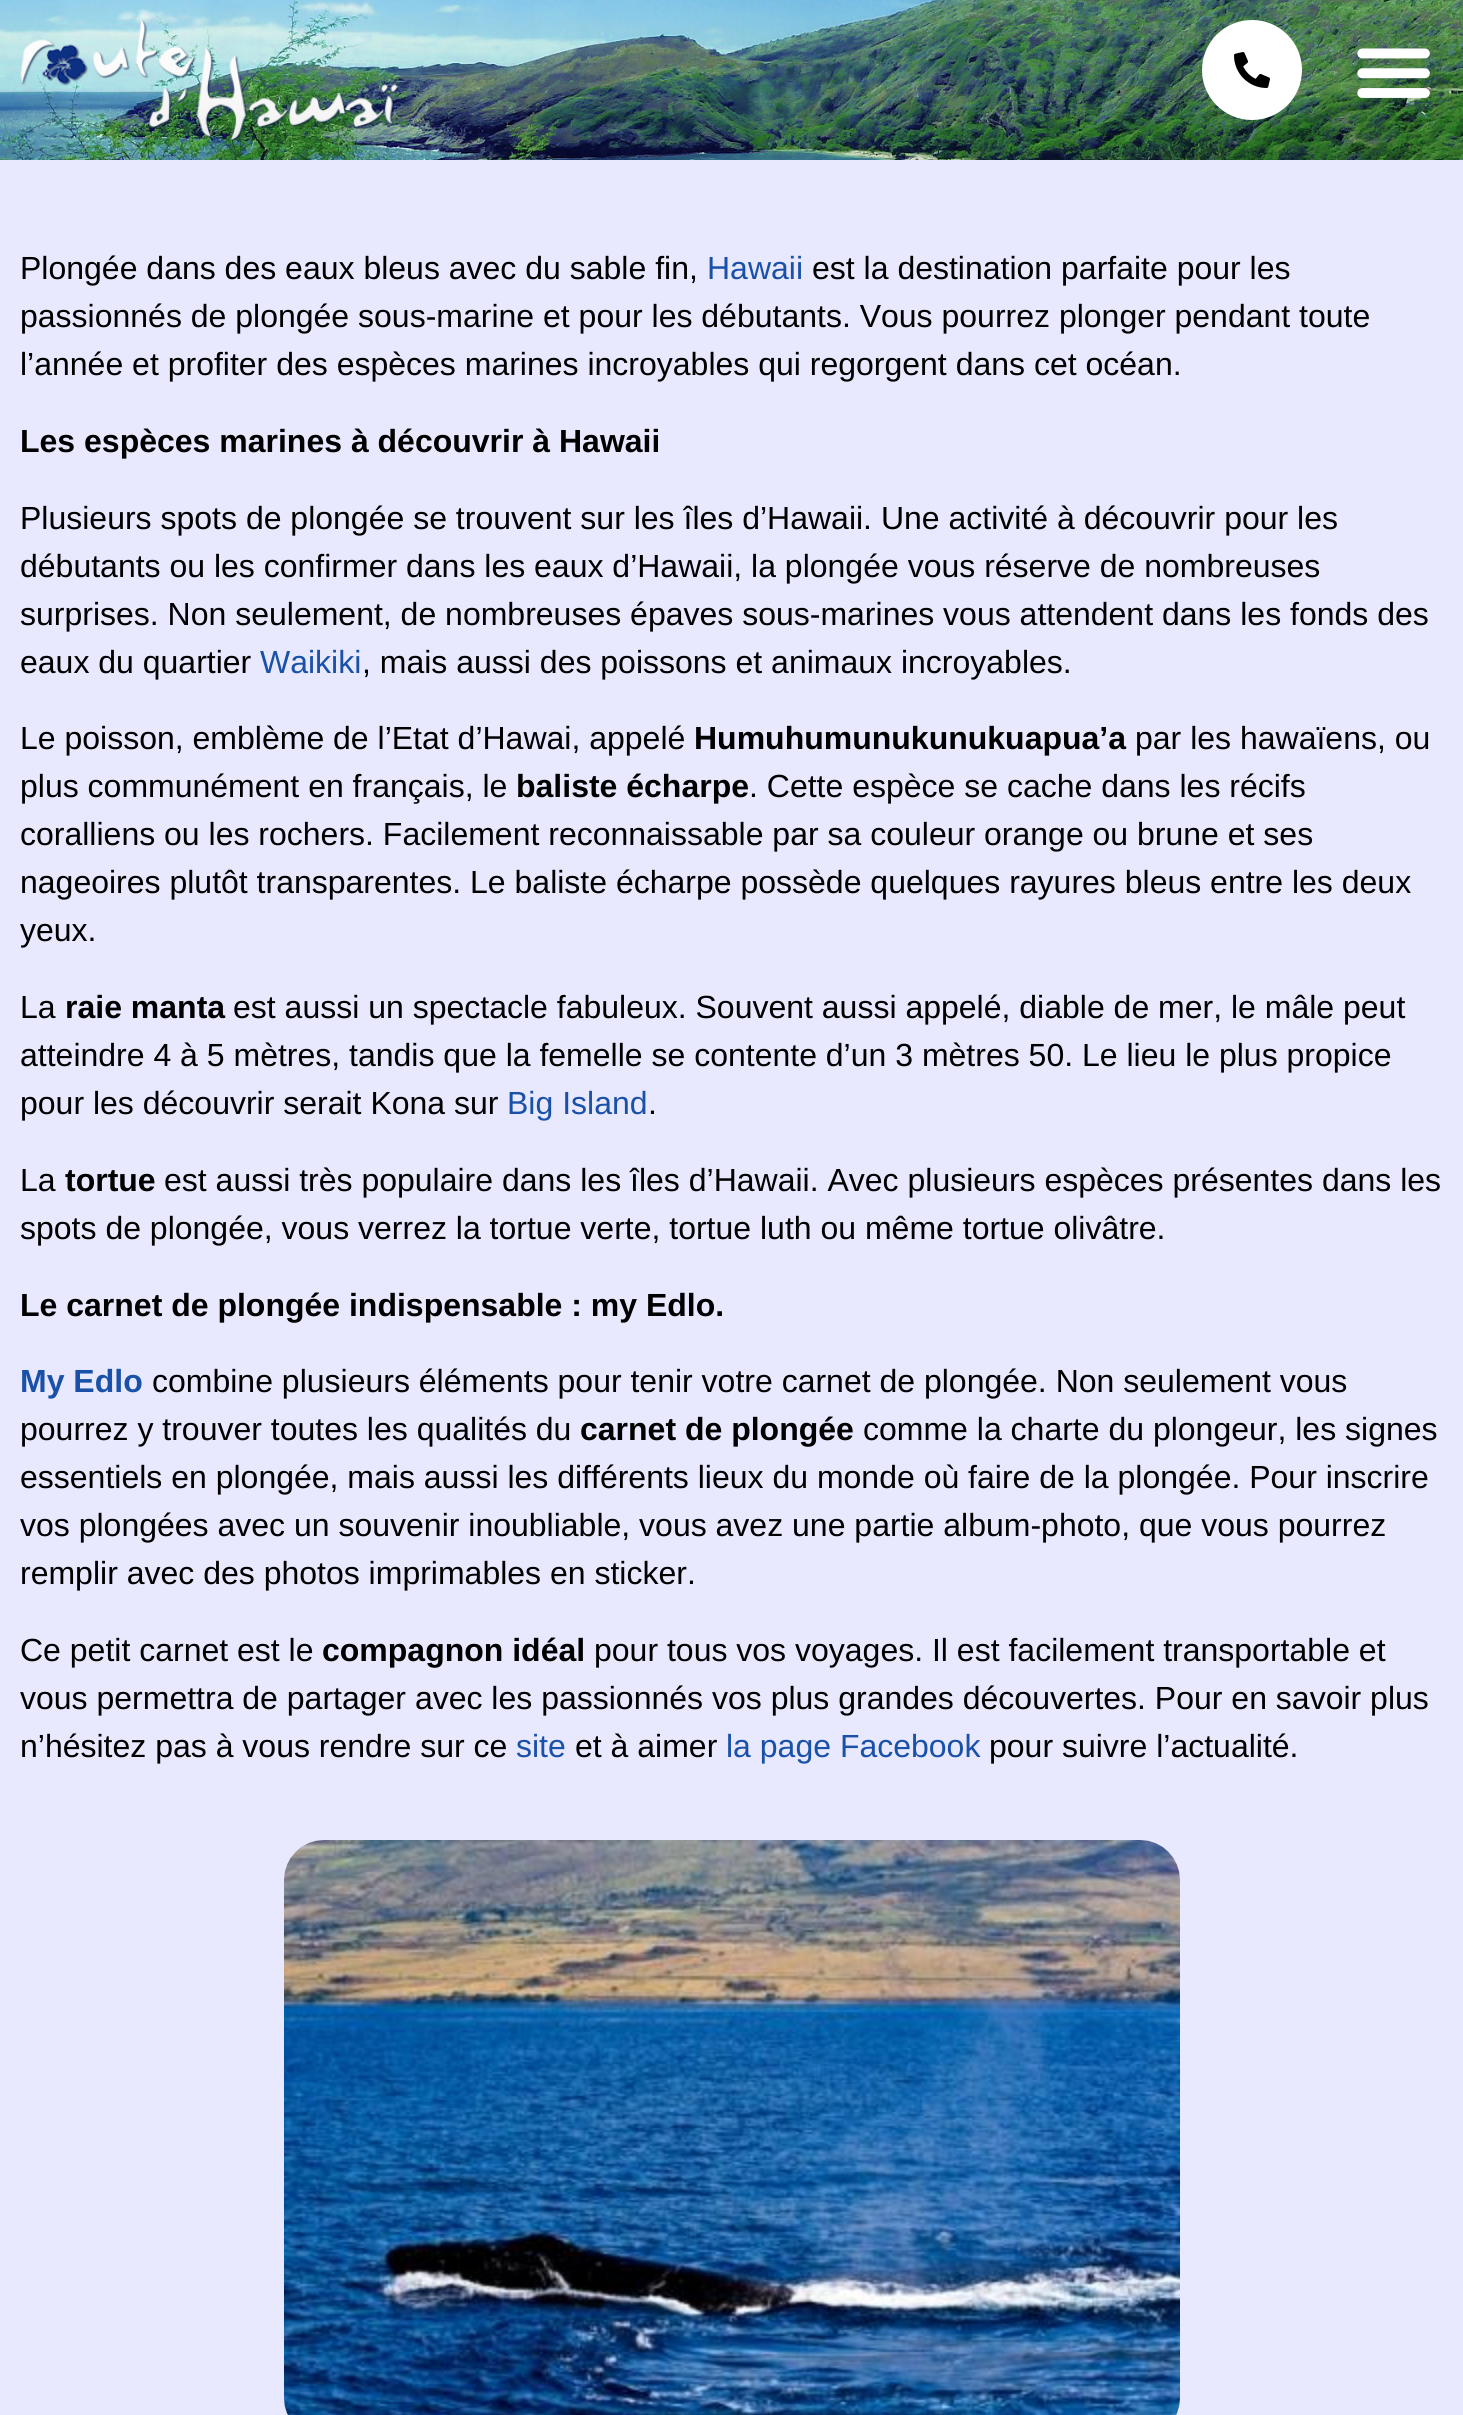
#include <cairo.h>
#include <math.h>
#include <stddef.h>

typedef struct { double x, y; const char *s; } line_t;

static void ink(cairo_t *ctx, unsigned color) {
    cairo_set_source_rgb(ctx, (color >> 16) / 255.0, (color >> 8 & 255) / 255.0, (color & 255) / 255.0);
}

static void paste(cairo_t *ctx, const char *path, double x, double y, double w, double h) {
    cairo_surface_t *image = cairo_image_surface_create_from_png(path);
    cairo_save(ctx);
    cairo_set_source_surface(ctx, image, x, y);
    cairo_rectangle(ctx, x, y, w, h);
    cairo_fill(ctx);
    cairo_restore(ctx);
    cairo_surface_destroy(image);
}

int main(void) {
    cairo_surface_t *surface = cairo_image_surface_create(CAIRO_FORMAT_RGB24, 1463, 2415);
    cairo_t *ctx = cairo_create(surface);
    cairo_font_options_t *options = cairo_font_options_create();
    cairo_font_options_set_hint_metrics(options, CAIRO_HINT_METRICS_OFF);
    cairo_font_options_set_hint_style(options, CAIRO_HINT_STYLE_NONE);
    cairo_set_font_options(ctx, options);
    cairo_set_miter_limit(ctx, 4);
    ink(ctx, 0xE8E8FF);
    cairo_paint(ctx);
    paste(ctx, "media/1.png", 0, 0, 1463, 160);
    paste(ctx, "media/2.png", 20, 20, 378, 120);
    ink(ctx, 0xFFFFFF);
    cairo_arc(ctx, 1252, 70, 50, 0, 2 * M_PI);
    cairo_fill(ctx);
    paste(ctx, "media/3.png", 1234, 52, 36, 36);
    cairo_set_source_rgba(ctx, 0, 0, 0, 0.05);
    cairo_rectangle(ctx, 1342, 20, 102, 102);
    cairo_fill(ctx);
    paste(ctx, "media/4.png", 1357, 48, 73, 50);
    cairo_select_font_face(ctx, "Liberation Sans", CAIRO_FONT_SLANT_NORMAL, CAIRO_FONT_WEIGHT_NORMAL);
    cairo_set_font_size(ctx, 32);
    ink(ctx, 0x000000);
    cairo_move_to(ctx, 20, 279);
    cairo_show_text(ctx, "Plongée dans des eaux bleus avec du sable fin,");
    ink(ctx, 0x1951A8);
    cairo_move_to(ctx, 707, 279);
    cairo_show_text(ctx, "Hawaii");
    ink(ctx, 0x000000);
    {
        static const line_t items[] = {
            {812, 279, "est la destination parfaite pour les"},
            {20, 327, "passionnés de plongée sous-marine et pour les débutants. Vous pourrez plonger pendant toute"},
            {20, 375, "l’année et profiter des espèces marines incroyables qui regorgent dans cet océan."},
        };
        for (size_t i = 0; i < sizeof items / sizeof *items; i++) {
            cairo_move_to(ctx, items[i].x, items[i].y);
            cairo_show_text(ctx, items[i].s);
        }
    }
    cairo_select_font_face(ctx, "Liberation Sans", CAIRO_FONT_SLANT_NORMAL, CAIRO_FONT_WEIGHT_BOLD);
    cairo_move_to(ctx, 20, 452);
    cairo_show_text(ctx, "Les espèces marines à découvrir à Hawaii");
    cairo_select_font_face(ctx, "Liberation Sans", CAIRO_FONT_SLANT_NORMAL, CAIRO_FONT_WEIGHT_NORMAL);
    {
        static const line_t items[] = {
            {20, 529, "Plusieurs spots de plongée se trouvent sur les îles d’Hawaii. Une activité à découvrir pour les"},
            {20, 577, "débutants ou les confirmer dans les eaux d’Hawaii, la plongée vous réserve de nombreuses"},
            {20, 625, "surprises. Non seulement, de nombreuses épaves sous-marines vous attendent dans les fonds des"},
            {20, 673, "eaux du quartier"},
        };
        for (size_t i = 0; i < sizeof items / sizeof *items; i++) {
            cairo_move_to(ctx, items[i].x, items[i].y);
            cairo_show_text(ctx, items[i].s);
        }
    }
    ink(ctx, 0x1951A8);
    cairo_move_to(ctx, 260, 673);
    cairo_show_text(ctx, "Waikiki");
    ink(ctx, 0x000000);
    cairo_move_to(ctx, 362, 673);
    cairo_show_text(ctx, ", mais aussi des poissons et animaux incroyables.");
    cairo_move_to(ctx, 20, 749);
    cairo_show_text(ctx, "Le poisson, emblème de l’Etat d’Hawai, appelé");
    cairo_select_font_face(ctx, "Liberation Sans", CAIRO_FONT_SLANT_NORMAL, CAIRO_FONT_WEIGHT_BOLD);
    cairo_move_to(ctx, 694, 749);
    cairo_show_text(ctx, "Humuhumunukunukuapua’a");
    cairo_select_font_face(ctx, "Liberation Sans", CAIRO_FONT_SLANT_NORMAL, CAIRO_FONT_WEIGHT_NORMAL);
    cairo_move_to(ctx, 1135, 749);
    cairo_show_text(ctx, "par les hawaïens, ou");
    cairo_move_to(ctx, 20, 797);
    cairo_show_text(ctx, "plus communément en français, le");
    cairo_select_font_face(ctx, "Liberation Sans", CAIRO_FONT_SLANT_NORMAL, CAIRO_FONT_WEIGHT_BOLD);
    cairo_move_to(ctx, 516, 797);
    cairo_show_text(ctx, "baliste écharpe");
    cairo_select_font_face(ctx, "Liberation Sans", CAIRO_FONT_SLANT_NORMAL, CAIRO_FONT_WEIGHT_NORMAL);
    {
        static const line_t items[] = {
            {749, 797, ". Cette espèce se cache dans les récifs"},
            {20, 845, "coralliens ou les rochers. Facilement reconnaissable par sa couleur orange ou brune et ses"},
            {20, 893, "nageoires plutôt transparentes. Le baliste écharpe possède quelques rayures bleus entre les deux"},
            {20, 941, "yeux."},
            {20, 1018, "La"},
        };
        for (size_t i = 0; i < sizeof items / sizeof *items; i++) {
            cairo_move_to(ctx, items[i].x, items[i].y);
            cairo_show_text(ctx, items[i].s);
        }
    }
    cairo_select_font_face(ctx, "Liberation Sans", CAIRO_FONT_SLANT_NORMAL, CAIRO_FONT_WEIGHT_BOLD);
    cairo_move_to(ctx, 65, 1018);
    cairo_show_text(ctx, "raie manta");
    cairo_select_font_face(ctx, "Liberation Sans", CAIRO_FONT_SLANT_NORMAL, CAIRO_FONT_WEIGHT_NORMAL);
    {
        static const line_t items[] = {
            {233, 1018, "est aussi un spectacle fabuleux. Souvent aussi appelé, diable de mer, le mâle peut"},
            {20, 1066, "atteindre 4 à 5 mètres, tandis que la femelle se contente d’un 3 mètres 50. Le lieu le plus propice"},
            {20, 1114, "pour les découvrir serait Kona sur"},
        };
        for (size_t i = 0; i < sizeof items / sizeof *items; i++) {
            cairo_move_to(ctx, items[i].x, items[i].y);
            cairo_show_text(ctx, items[i].s);
        }
    }
    ink(ctx, 0x1951A8);
    cairo_move_to(ctx, 507, 1114);
    cairo_show_text(ctx, "Big Island");
    ink(ctx, 0x000000);
    cairo_move_to(ctx, 648, 1114);
    cairo_show_text(ctx, ".");
    cairo_move_to(ctx, 20, 1191);
    cairo_show_text(ctx, "La");
    cairo_select_font_face(ctx, "Liberation Sans", CAIRO_FONT_SLANT_NORMAL, CAIRO_FONT_WEIGHT_BOLD);
    cairo_move_to(ctx, 65, 1191);
    cairo_show_text(ctx, "tortue");
    cairo_select_font_face(ctx, "Liberation Sans", CAIRO_FONT_SLANT_NORMAL, CAIRO_FONT_WEIGHT_NORMAL);
    cairo_move_to(ctx, 164, 1191);
    cairo_show_text(ctx, "est aussi très populaire dans les îles d’Hawaii. Avec plusieurs espèces présentes dans les");
    cairo_move_to(ctx, 20, 1239);
    cairo_show_text(ctx, "spots de plongée, vous verrez la tortue verte, tortue luth ou même tortue olivâtre.");
    cairo_select_font_face(ctx, "Liberation Sans", CAIRO_FONT_SLANT_NORMAL, CAIRO_FONT_WEIGHT_BOLD);
    cairo_move_to(ctx, 20, 1316);
    cairo_show_text(ctx, "Le carnet de plongée indispensable : my Edlo.");
    ink(ctx, 0x1951A8);
    cairo_move_to(ctx, 20, 1392);
    cairo_show_text(ctx, "My Edlo");
    cairo_select_font_face(ctx, "Liberation Sans", CAIRO_FONT_SLANT_NORMAL, CAIRO_FONT_WEIGHT_NORMAL);
    ink(ctx, 0x000000);
    cairo_move_to(ctx, 152, 1392);
    cairo_show_text(ctx, "combine plusieurs éléments pour tenir votre carnet de plongée. Non seulement vous");
    cairo_move_to(ctx, 20, 1440);
    cairo_show_text(ctx, "pourrez y trouver toutes les qualités du");
    cairo_select_font_face(ctx, "Liberation Sans", CAIRO_FONT_SLANT_NORMAL, CAIRO_FONT_WEIGHT_BOLD);
    cairo_move_to(ctx, 580, 1440);
    cairo_show_text(ctx, "carnet de plongée");
    cairo_select_font_face(ctx, "Liberation Sans", CAIRO_FONT_SLANT_NORMAL, CAIRO_FONT_WEIGHT_NORMAL);
    {
        static const line_t items[] = {
            {863, 1440, "comme la charte du plongeur, les signes"},
            {20, 1488, "essentiels en plongée, mais aussi les différents lieux du monde où faire de la plongée. Pour inscrire"},
            {20, 1536, "vos plongées avec un souvenir inoubliable, vous avez une partie album-photo, que vous pourrez"},
            {20, 1584, "remplir avec des photos imprimables en sticker."},
            {20, 1661, "Ce petit carnet est le"},
        };
        for (size_t i = 0; i < sizeof items / sizeof *items; i++) {
            cairo_move_to(ctx, items[i].x, items[i].y);
            cairo_show_text(ctx, items[i].s);
        }
    }
    cairo_select_font_face(ctx, "Liberation Sans", CAIRO_FONT_SLANT_NORMAL, CAIRO_FONT_WEIGHT_BOLD);
    cairo_move_to(ctx, 322, 1661);
    cairo_show_text(ctx, "compagnon idéal");
    cairo_select_font_face(ctx, "Liberation Sans", CAIRO_FONT_SLANT_NORMAL, CAIRO_FONT_WEIGHT_NORMAL);
    {
        static const line_t items[] = {
            {594, 1661, "pour tous vos voyages. Il est facilement transportable et"},
            {20, 1709, "vous permettra de partager avec les passionnés vos plus grandes découvertes. Pour en savoir plus"},
            {20, 1757, "n’hésitez pas à vous rendre sur ce"},
        };
        for (size_t i = 0; i < sizeof items / sizeof *items; i++) {
            cairo_move_to(ctx, items[i].x, items[i].y);
            cairo_show_text(ctx, items[i].s);
        }
    }
    ink(ctx, 0x1951A8);
    cairo_move_to(ctx, 516, 1757);
    cairo_show_text(ctx, "site");
    ink(ctx, 0x000000);
    cairo_move_to(ctx, 575, 1757);
    cairo_show_text(ctx, "et à aimer");
    ink(ctx, 0x1951A8);
    cairo_move_to(ctx, 726, 1757);
    cairo_show_text(ctx, "la page Facebook");
    ink(ctx, 0x000000);
    cairo_move_to(ctx, 989, 1757);
    cairo_show_text(ctx, "pour suivre l’actualité.");
    paste(ctx, "media/5.png", 284, 1840, 896, 575);
    cairo_surface_write_to_png(surface, "image.png");
    cairo_font_options_destroy(options);
    cairo_destroy(ctx);
    cairo_surface_destroy(surface);
    return 0;
}
